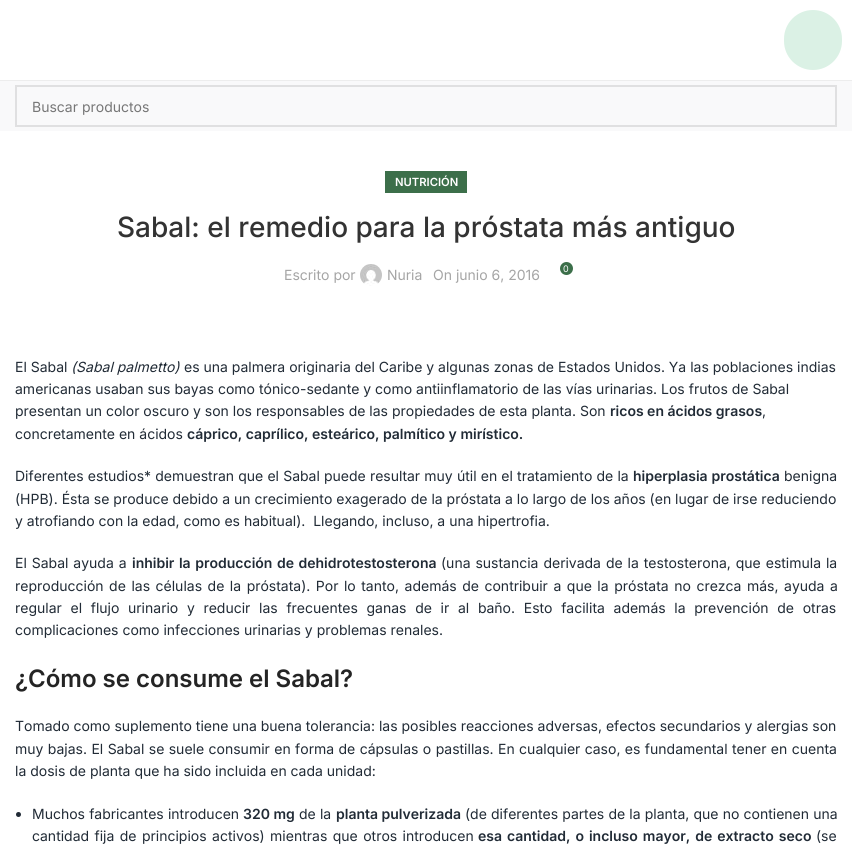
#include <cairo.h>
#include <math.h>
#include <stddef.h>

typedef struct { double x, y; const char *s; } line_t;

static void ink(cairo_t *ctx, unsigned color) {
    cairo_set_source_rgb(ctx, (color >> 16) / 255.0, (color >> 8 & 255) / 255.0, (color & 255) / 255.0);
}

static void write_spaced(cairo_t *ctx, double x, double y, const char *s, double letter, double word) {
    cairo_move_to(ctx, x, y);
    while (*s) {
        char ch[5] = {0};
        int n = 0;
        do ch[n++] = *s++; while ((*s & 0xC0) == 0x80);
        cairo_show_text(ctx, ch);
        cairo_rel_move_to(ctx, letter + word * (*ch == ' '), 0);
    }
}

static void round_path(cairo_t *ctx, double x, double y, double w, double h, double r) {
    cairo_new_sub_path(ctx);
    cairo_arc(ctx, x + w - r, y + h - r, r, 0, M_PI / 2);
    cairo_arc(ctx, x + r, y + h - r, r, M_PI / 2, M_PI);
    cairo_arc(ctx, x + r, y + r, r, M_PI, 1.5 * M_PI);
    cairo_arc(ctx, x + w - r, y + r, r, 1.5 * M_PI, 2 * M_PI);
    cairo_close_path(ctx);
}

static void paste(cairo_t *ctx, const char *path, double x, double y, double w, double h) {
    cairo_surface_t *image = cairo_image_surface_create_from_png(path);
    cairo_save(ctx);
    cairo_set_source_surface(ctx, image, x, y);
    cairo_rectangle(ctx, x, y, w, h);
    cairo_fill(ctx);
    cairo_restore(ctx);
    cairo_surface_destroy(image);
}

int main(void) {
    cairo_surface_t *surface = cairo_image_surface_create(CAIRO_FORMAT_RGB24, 852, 845);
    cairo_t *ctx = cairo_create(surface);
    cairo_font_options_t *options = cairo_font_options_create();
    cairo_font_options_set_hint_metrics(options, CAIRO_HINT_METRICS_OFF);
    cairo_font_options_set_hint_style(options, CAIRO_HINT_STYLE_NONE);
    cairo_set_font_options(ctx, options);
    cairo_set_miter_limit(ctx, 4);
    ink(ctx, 0xFFFFFF);
    cairo_paint(ctx);
    ink(ctx, 0xEDEDED);
    cairo_rectangle(ctx, 0, 80, 852, 1);
    cairo_fill(ctx);
    ink(ctx, 0xDBF1E5);
    round_path(ctx, 784, 10, 58, 60, 29);
    cairo_fill(ctx);
    ink(ctx, 0xF9F9FA);
    cairo_rectangle(ctx, 0, 81, 852, 50);
    cairo_fill(ctx);
    cairo_rectangle(ctx, 16, 86, 820, 40);
    ink(ctx, 0xE0E0E1);
    cairo_stroke(ctx);
    cairo_select_font_face(ctx, "Inter", CAIRO_FONT_SLANT_NORMAL, CAIRO_FONT_WEIGHT_NORMAL);
    cairo_set_font_size(ctx, 14);
    ink(ctx, 0x767676);
    cairo_move_to(ctx, 32, 112);
    cairo_show_text(ctx, "Buscar productos");
    ink(ctx, 0x3C6F4A);
    cairo_rectangle(ctx, 385, 171, 82, 22);
    cairo_fill(ctx);
    cairo_select_font_face(ctx, "Inter SemiBold", CAIRO_FONT_SLANT_NORMAL, CAIRO_FONT_WEIGHT_NORMAL);
    cairo_set_font_size(ctx, 11.25);
    ink(ctx, 0xFFFFFF);
    cairo_move_to(ctx, 395, 186);
    cairo_show_text(ctx, "NUTRICIÓN");
    cairo_select_font_face(ctx, "Inter Medium", CAIRO_FONT_SLANT_NORMAL, CAIRO_FONT_WEIGHT_NORMAL);
    cairo_set_font_size(ctx, 28);
    ink(ctx, 0x333333);
    cairo_move_to(ctx, 117, 237);
    cairo_show_text(ctx, "Sabal: el remedio para la próstata más antiguo");
    cairo_select_font_face(ctx, "Inter", CAIRO_FONT_SLANT_NORMAL, CAIRO_FONT_WEIGHT_NORMAL);
    cairo_set_font_size(ctx, 14);
    ink(ctx, 0xA5A5A5);
    cairo_move_to(ctx, 284, 280);
    cairo_show_text(ctx, "Escrito por");
    paste(ctx, "media/1.png", 360, 264, 22, 22);
    cairo_move_to(ctx, 387, 280);
    cairo_show_text(ctx, "Nuria");
    cairo_move_to(ctx, 433, 280);
    cairo_show_text(ctx, "On junio 6, 2016");
    ink(ctx, 0x3C6F4A);
    cairo_new_path(ctx);
    cairo_arc(ctx, 566.5, 268.5, 6.5, 0, 2 * M_PI);
    cairo_fill(ctx);
    cairo_set_font_size(ctx, 9);
    ink(ctx, 0xFFFFFF);
    cairo_move_to(ctx, 563, 272);
    cairo_show_text(ctx, "0");
    cairo_set_font_size(ctx, 14);
    ink(ctx, 0x212B36);
    cairo_move_to(ctx, 15, 372);
    cairo_show_text(ctx, "El Sabal");
    cairo_select_font_face(ctx, "Inter", CAIRO_FONT_SLANT_ITALIC, CAIRO_FONT_WEIGHT_NORMAL);
    cairo_move_to(ctx, 71, 372);
    cairo_show_text(ctx, "(Sabal palmetto)");
    cairo_select_font_face(ctx, "Inter", CAIRO_FONT_SLANT_NORMAL, CAIRO_FONT_WEIGHT_NORMAL);
    {
        static const line_t items[] = {
            {184, 372, "es una palmera originaria del Caribe y algunas zonas de Estados Unidos. Ya las poblaciones indias"},
            {15, 394, "americanas usaban sus bayas como tónico-sedante y como antiinflamatorio de las vías urinarias. Los frutos de Sabal"},
            {15, 416, "presentan un color oscuro y son los responsables de las propiedades de esta planta. Son"},
        };
        for (size_t i = 0; i < sizeof items / sizeof *items; i++) {
            cairo_move_to(ctx, items[i].x, items[i].y);
            cairo_show_text(ctx, items[i].s);
        }
    }
    cairo_select_font_face(ctx, "Inter SemiBold", CAIRO_FONT_SLANT_NORMAL, CAIRO_FONT_WEIGHT_NORMAL);
    cairo_move_to(ctx, 610, 416);
    cairo_show_text(ctx, "ricos en ácidos grasos");
    cairo_select_font_face(ctx, "Inter", CAIRO_FONT_SLANT_NORMAL, CAIRO_FONT_WEIGHT_NORMAL);
    cairo_move_to(ctx, 762, 416);
    cairo_show_text(ctx, ",");
    cairo_move_to(ctx, 15, 439);
    cairo_show_text(ctx, "concretamente en ácidos");
    cairo_select_font_face(ctx, "Inter SemiBold", CAIRO_FONT_SLANT_NORMAL, CAIRO_FONT_WEIGHT_NORMAL);
    cairo_move_to(ctx, 187, 439);
    cairo_show_text(ctx, "cáprico, caprílico, esteárico, palmítico y mirístico.");
    cairo_select_font_face(ctx, "Inter", CAIRO_FONT_SLANT_NORMAL, CAIRO_FONT_WEIGHT_NORMAL);
    write_spaced(ctx, 15, 481, "Diferentes estudios* demuestran que el Sabal puede resultar muy útil en el tratamiento de la", 0, 0.25);
    cairo_select_font_face(ctx, "Inter SemiBold", CAIRO_FONT_SLANT_NORMAL, CAIRO_FONT_WEIGHT_NORMAL);
    write_spaced(ctx, 633, 481, "hiperplasia prostática", 0, 0.25);
    cairo_select_font_face(ctx, "Inter", CAIRO_FONT_SLANT_NORMAL, CAIRO_FONT_WEIGHT_NORMAL);
    {
        static const line_t items[] = {
            {784, 481, "benigna"},
            {15, 504, "(HPB). Ésta se produce debido a un crecimiento exagerado de la próstata a lo largo de los años (en lugar de irse reduciendo"},
            {15, 526, "y atrofiando con la edad, como es habitual).  Llegando, incluso, a una hipertrofia."},
        };
        for (size_t i = 0; i < sizeof items / sizeof *items; i++) {
            cairo_move_to(ctx, items[i].x, items[i].y);
            cairo_show_text(ctx, items[i].s);
        }
    }
    write_spaced(ctx, 15, 568, "El Sabal ayuda a", 0, 1);
    cairo_select_font_face(ctx, "Inter SemiBold", CAIRO_FONT_SLANT_NORMAL, CAIRO_FONT_WEIGHT_NORMAL);
    write_spaced(ctx, 132, 568, "inhibir la producción de dehidrotestosterona", 0, 1);
    cairo_select_font_face(ctx, "Inter", CAIRO_FONT_SLANT_NORMAL, CAIRO_FONT_WEIGHT_NORMAL);
    write_spaced(ctx, 441, 568, "(una sustancia derivada de la testosterona, que estimula la", 0, 1);
    write_spaced(ctx, 15, 591, "reproducción de las células de la próstata). Por lo tanto, además de contribuir a que la próstata no crezca más, ayuda a", 0, 1.6);
    write_spaced(ctx, 15, 613, "regular el flujo urinario y reducir las frecuentes ganas de ir al baño. Esto facilita además la prevención de otras", 0, 4.75);
    cairo_move_to(ctx, 15, 635);
    cairo_show_text(ctx, "complicaciones como infecciones urinarias y problemas renales.");
    cairo_select_font_face(ctx, "Inter SemiBold", CAIRO_FONT_SLANT_NORMAL, CAIRO_FONT_WEIGHT_NORMAL);
    cairo_set_font_size(ctx, 24);
    ink(ctx, 0x242424);
    cairo_move_to(ctx, 15, 687);
    cairo_show_text(ctx, "¿Cómo se consume el Sabal?");
    cairo_select_font_face(ctx, "Inter", CAIRO_FONT_SLANT_NORMAL, CAIRO_FONT_WEIGHT_NORMAL);
    cairo_set_font_size(ctx, 14);
    ink(ctx, 0x212B36);
    cairo_move_to(ctx, 15, 731);
    cairo_show_text(ctx, "Tomado como suplemento tiene una buena tolerancia: las posibles reacciones adversas, efectos secundarios y alergias son");
    write_spaced(ctx, 15, 754, "muy bajas. El Sabal se suele consumir en forma de cápsulas o pastillas. En cualquier caso, es fundamental tener en cuenta", 0, 0.5);
    cairo_move_to(ctx, 15, 776);
    cairo_show_text(ctx, "la dosis de planta que ha sido incluida en cada unidad:");
    cairo_new_path(ctx);
    cairo_arc(ctx, 18.5, 814.5, 2.5, 0, 2 * M_PI);
    cairo_fill(ctx);
    write_spaced(ctx, 32, 819, "Muchos fabricantes introducen", 0, 0.25);
    cairo_select_font_face(ctx, "Inter SemiBold", CAIRO_FONT_SLANT_NORMAL, CAIRO_FONT_WEIGHT_NORMAL);
    cairo_move_to(ctx, 243, 819);
    cairo_show_text(ctx, "320 mg");
    cairo_select_font_face(ctx, "Inter", CAIRO_FONT_SLANT_NORMAL, CAIRO_FONT_WEIGHT_NORMAL);
    write_spaced(ctx, 299, 819, "de la", 0, 0.25);
    cairo_select_font_face(ctx, "Inter SemiBold", CAIRO_FONT_SLANT_NORMAL, CAIRO_FONT_WEIGHT_NORMAL);
    cairo_move_to(ctx, 336, 819);
    cairo_show_text(ctx, "planta pulverizada");
    cairo_select_font_face(ctx, "Inter", CAIRO_FONT_SLANT_NORMAL, CAIRO_FONT_WEIGHT_NORMAL);
    write_spaced(ctx, 465, 819, "(de diferentes partes de la planta, que no contienen una", 0, 0.25);
    write_spaced(ctx, 32, 841, "cantidad fija de principios activos) mientras que otros introducen", 0, 1.5);
    cairo_select_font_face(ctx, "Inter SemiBold", CAIRO_FONT_SLANT_NORMAL, CAIRO_FONT_WEIGHT_NORMAL);
    write_spaced(ctx, 478, 841, "esa cantidad, o incluso mayor, de extracto seco", 0, 1.5);
    cairo_select_font_face(ctx, "Inter", CAIRO_FONT_SLANT_NORMAL, CAIRO_FONT_WEIGHT_NORMAL);
    cairo_move_to(ctx, 816, 841);
    cairo_show_text(ctx, "(se");
    cairo_surface_write_to_png(surface, "image.png");
    cairo_font_options_destroy(options);
    cairo_destroy(ctx);
    cairo_surface_destroy(surface);
    return 0;
}
